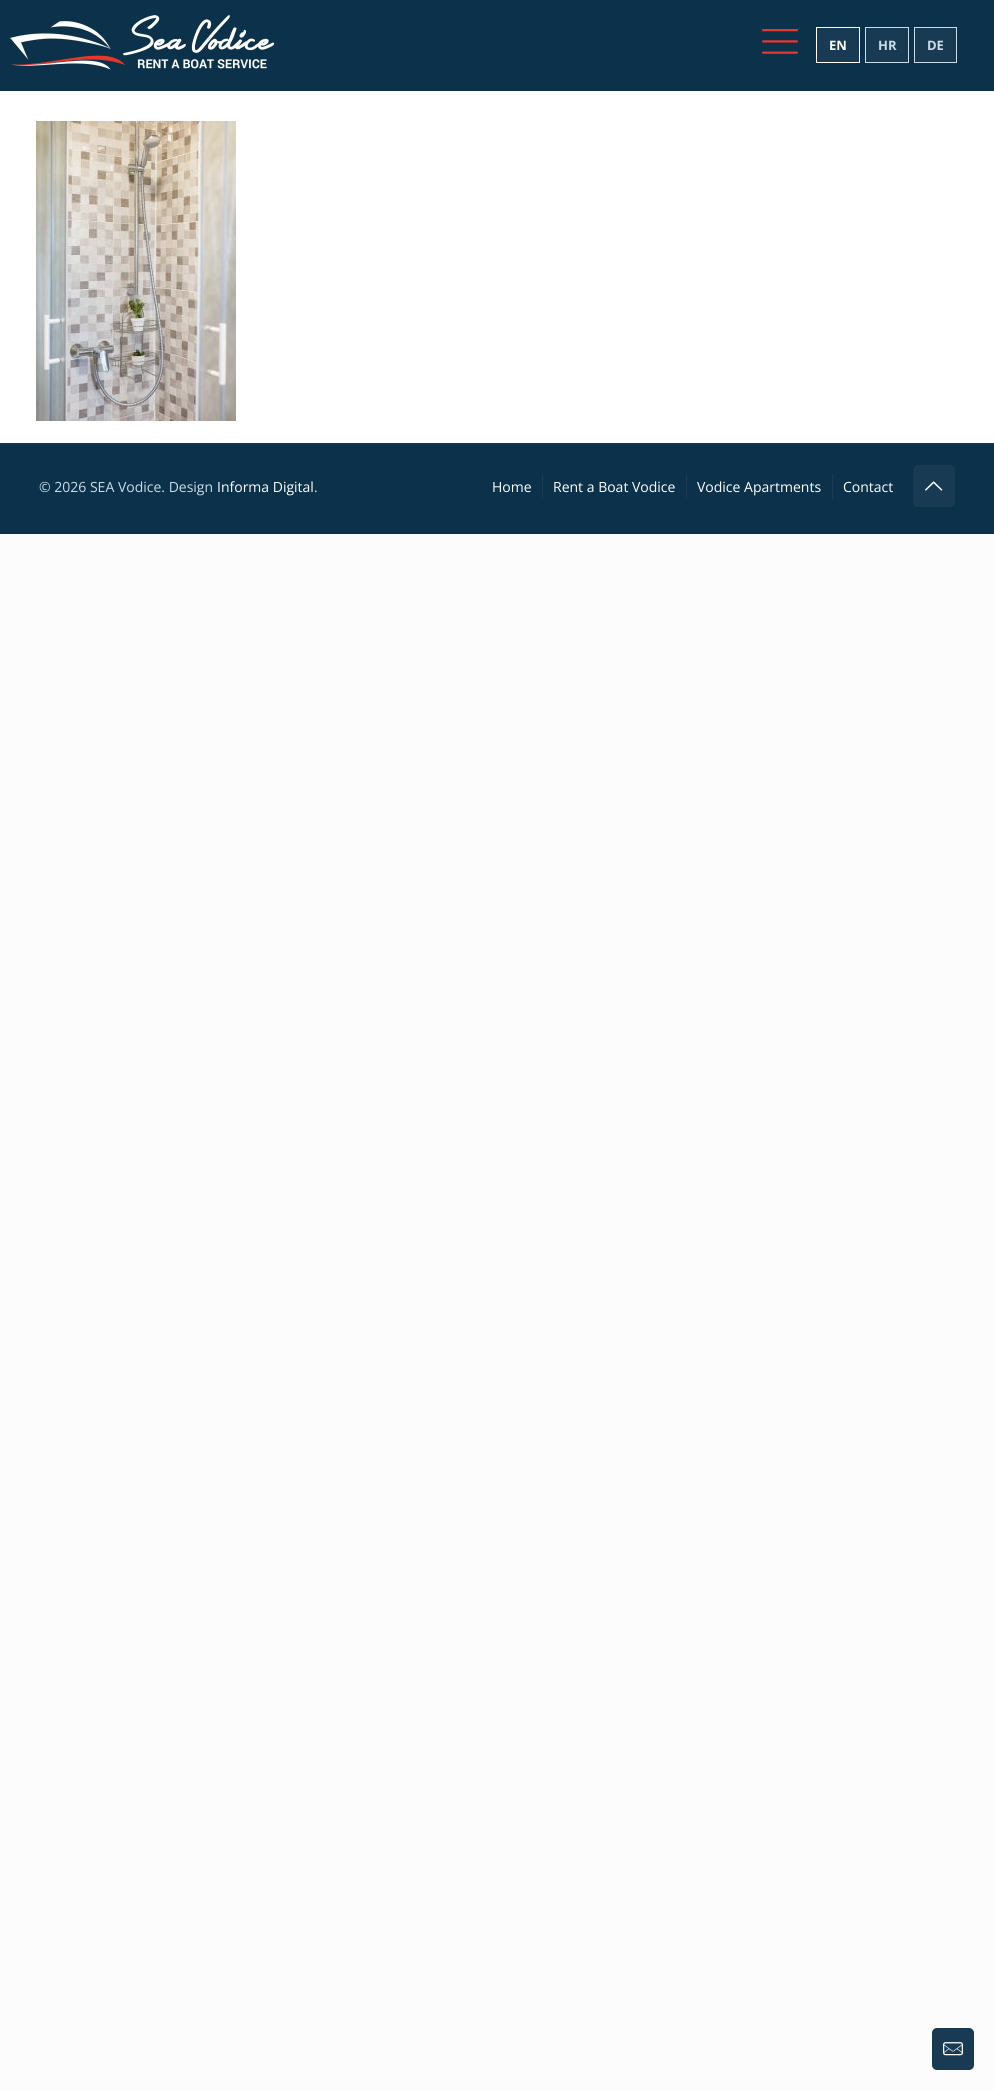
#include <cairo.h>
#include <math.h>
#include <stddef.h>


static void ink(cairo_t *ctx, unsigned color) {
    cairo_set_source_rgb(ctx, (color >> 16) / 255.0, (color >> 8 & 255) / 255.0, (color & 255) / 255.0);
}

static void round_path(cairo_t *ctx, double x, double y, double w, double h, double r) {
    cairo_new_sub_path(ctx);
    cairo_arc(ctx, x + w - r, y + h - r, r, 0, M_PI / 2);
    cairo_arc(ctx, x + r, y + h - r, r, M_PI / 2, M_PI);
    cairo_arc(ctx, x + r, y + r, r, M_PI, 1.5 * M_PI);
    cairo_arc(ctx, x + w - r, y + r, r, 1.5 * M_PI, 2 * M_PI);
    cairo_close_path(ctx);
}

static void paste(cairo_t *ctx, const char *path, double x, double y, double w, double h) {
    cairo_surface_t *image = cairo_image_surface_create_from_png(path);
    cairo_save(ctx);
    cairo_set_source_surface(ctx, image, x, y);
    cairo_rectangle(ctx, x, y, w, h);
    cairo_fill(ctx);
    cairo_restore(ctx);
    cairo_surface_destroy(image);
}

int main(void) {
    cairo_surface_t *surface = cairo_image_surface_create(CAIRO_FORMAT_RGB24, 994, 2090);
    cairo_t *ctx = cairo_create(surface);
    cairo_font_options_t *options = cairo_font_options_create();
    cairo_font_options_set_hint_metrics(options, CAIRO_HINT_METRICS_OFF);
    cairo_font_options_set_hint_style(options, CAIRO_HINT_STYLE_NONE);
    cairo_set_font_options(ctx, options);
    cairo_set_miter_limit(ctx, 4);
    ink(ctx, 0xFCFCFC);
    cairo_paint(ctx);
    ink(ctx, 0xFFFFFF);
    cairo_rectangle(ctx, 0, 91, 994, 352);
    cairo_fill(ctx);
    ink(ctx, 0x0C314A);
    cairo_rectangle(ctx, 0, 0, 994, 91);
    cairo_fill(ctx);
    paste(ctx, "media/1.png", 10, 15, 265, 55);
    paste(ctx, "media/2.png", 762, 29, 36, 25);
    ink(ctx, 0x183B53);
    cairo_rectangle(ctx, 816.5, 27.5, 43, 35);
    cairo_fill_preserve(ctx);
    ink(ctx, 0xFFFFFF);
    cairo_set_line_width(ctx, 1);
    cairo_stroke(ctx);
    cairo_select_font_face(ctx, "Open Sans", CAIRO_FONT_SLANT_NORMAL, CAIRO_FONT_WEIGHT_BOLD);
    cairo_set_font_size(ctx, 13);
    cairo_move_to(ctx, 829, 50);
    cairo_show_text(ctx, "EN");
    ink(ctx, 0x183B53);
    cairo_rectangle(ctx, 865.5, 27.5, 43, 35);
    cairo_fill_preserve(ctx);
    ink(ctx, 0xCBDCE9);
    cairo_stroke(ctx);
    cairo_move_to(ctx, 878, 50);
    cairo_show_text(ctx, "HR");
    ink(ctx, 0x183B53);
    cairo_rectangle(ctx, 914.5, 27.5, 42, 35);
    cairo_fill_preserve(ctx);
    ink(ctx, 0xCBDCE9);
    cairo_stroke(ctx);
    cairo_move_to(ctx, 927, 50);
    cairo_show_text(ctx, "DE");
    paste(ctx, "media/3.png", 36, 121, 200, 300);
    ink(ctx, 0x0C314A);
    cairo_rectangle(ctx, 0, 444, 994, 90);
    cairo_fill(ctx);
    ink(ctx, 0x183B53);
    cairo_rectangle(ctx, 0, 443, 994, 1);
    cairo_fill(ctx);
    cairo_select_font_face(ctx, "Open Sans", CAIRO_FONT_SLANT_NORMAL, CAIRO_FONT_WEIGHT_NORMAL);
    cairo_set_font_size(ctx, 14);
    ink(ctx, 0xCBDCE9);
    cairo_move_to(ctx, 39, 492);
    cairo_show_text(ctx, "© 2026 SEA Vodice. Design");
    ink(ctx, 0xFFFFFF);
    cairo_move_to(ctx, 217, 492);
    cairo_show_text(ctx, "Informa Digital");
    ink(ctx, 0xCBDCE9);
    cairo_move_to(ctx, 314, 492);
    cairo_show_text(ctx, ".");
    ink(ctx, 0x183B53);
    cairo_rectangle(ctx, 542, 474, 1, 25);
    cairo_fill(ctx);
    ink(ctx, 0xFFFFFF);
    cairo_move_to(ctx, 492, 492);
    cairo_show_text(ctx, "Home");
    ink(ctx, 0x183B53);
    cairo_rectangle(ctx, 686, 474, 1, 25);
    cairo_fill(ctx);
    ink(ctx, 0xFFFFFF);
    cairo_move_to(ctx, 553, 492);
    cairo_show_text(ctx, "Rent a Boat Vodice");
    ink(ctx, 0x183B53);
    cairo_rectangle(ctx, 832, 474, 1, 25);
    cairo_fill(ctx);
    ink(ctx, 0xFFFFFF);
    cairo_move_to(ctx, 697, 492);
    cairo_show_text(ctx, "Vodice Apartments");
    cairo_move_to(ctx, 843, 492);
    cairo_show_text(ctx, "Contact");
    ink(ctx, 0x183B53);
    round_path(ctx, 913, 465, 42, 42, 5);
    cairo_fill(ctx);
    paste(ctx, "media/4.png", 925, 481, 18, 10);
    round_path(ctx, 932, 2028, 42, 42, 5);
    cairo_fill(ctx);
    paste(ctx, "media/5.png", 943, 2042, 20, 14);
    cairo_surface_write_to_png(surface, "image.png");
    cairo_font_options_destroy(options);
    cairo_destroy(ctx);
    cairo_surface_destroy(surface);
    return 0;
}
